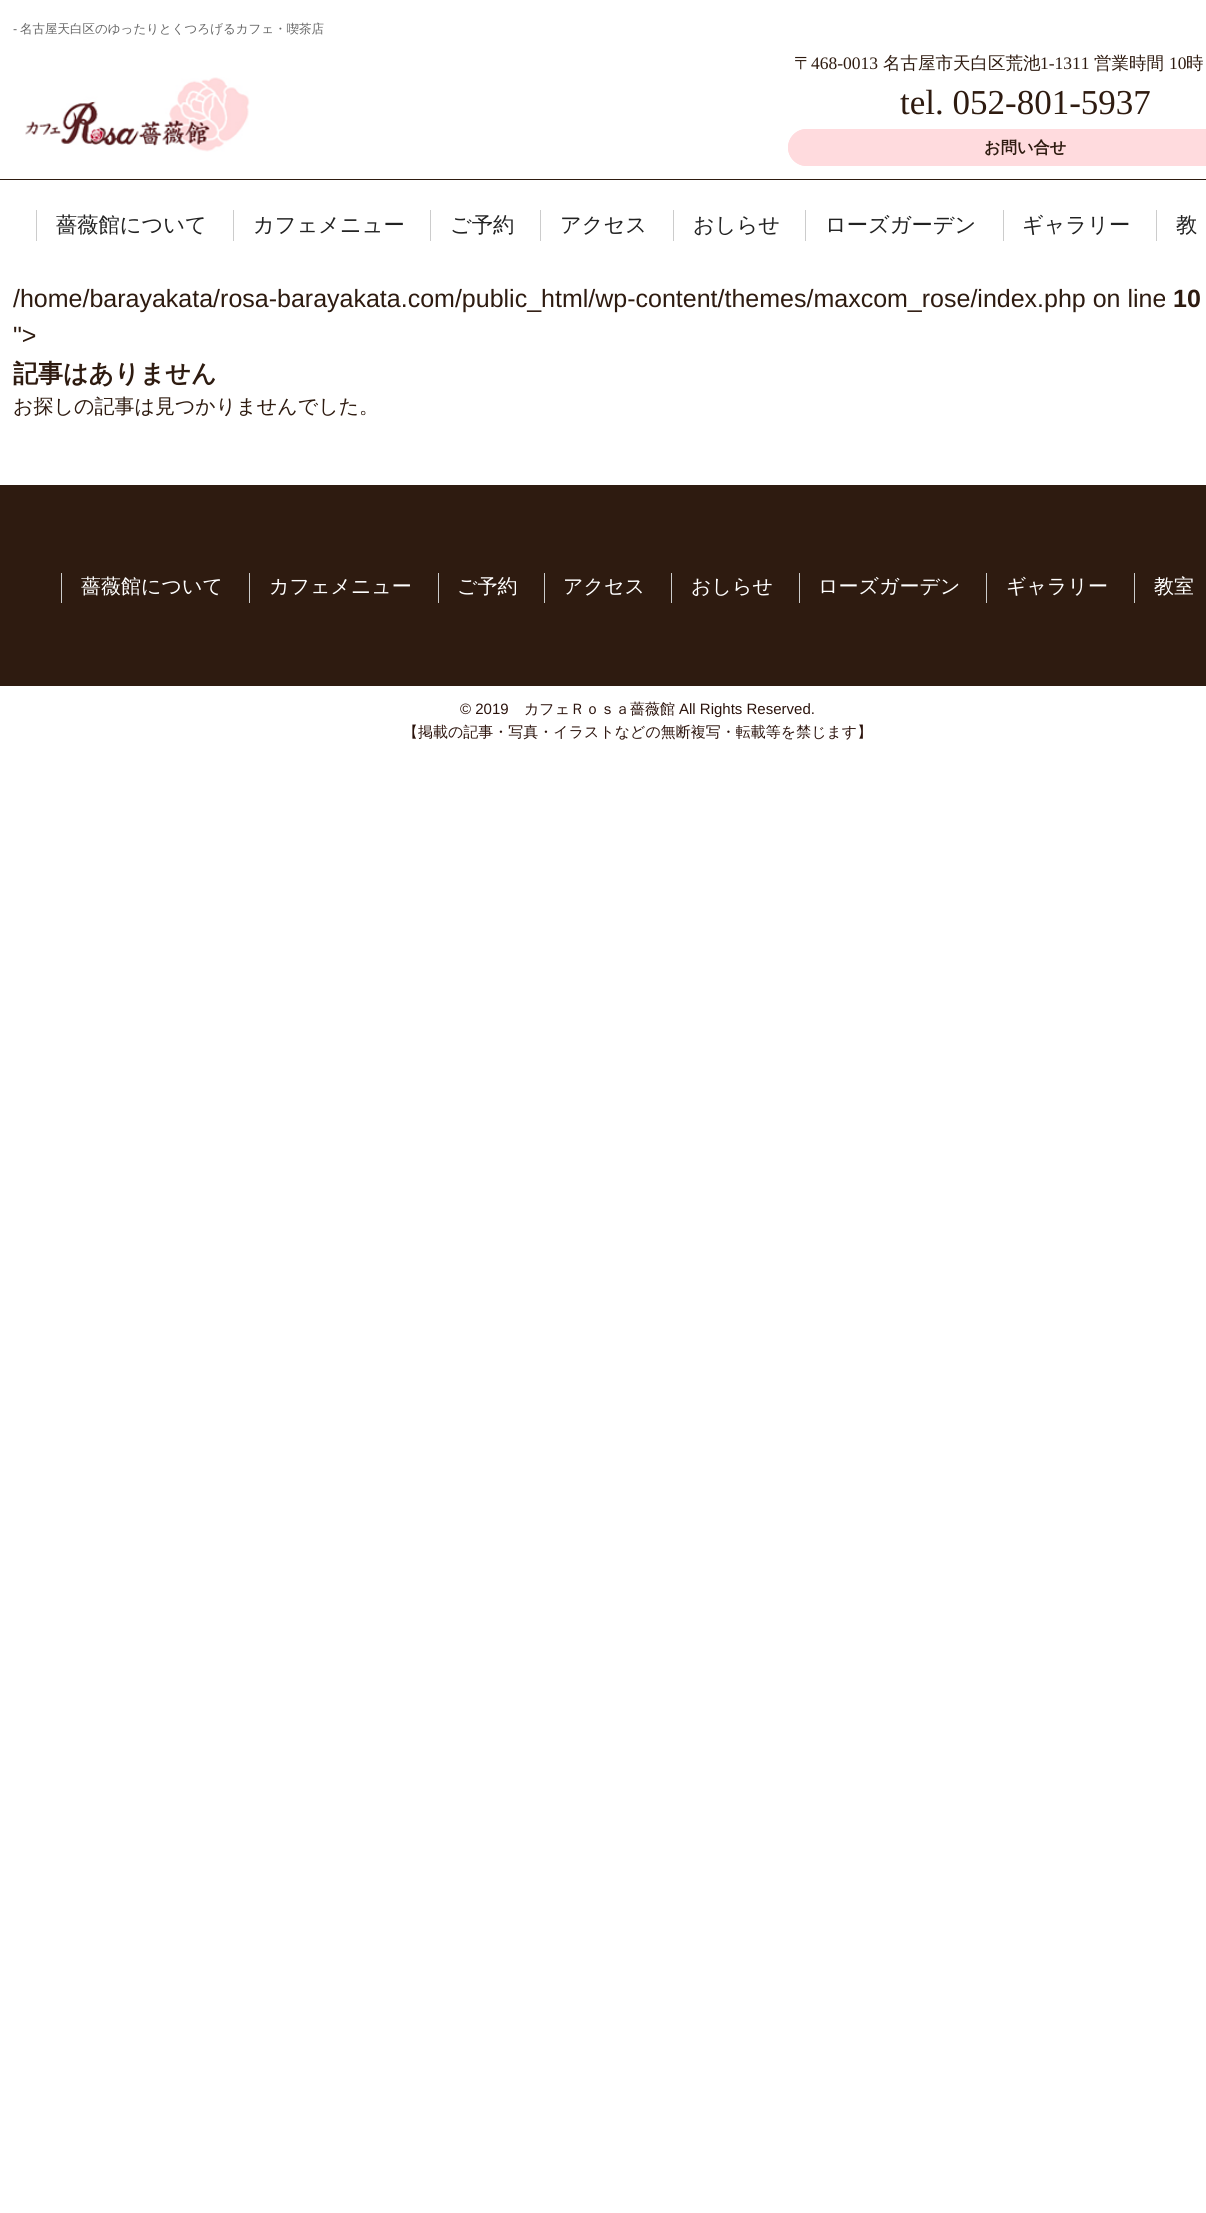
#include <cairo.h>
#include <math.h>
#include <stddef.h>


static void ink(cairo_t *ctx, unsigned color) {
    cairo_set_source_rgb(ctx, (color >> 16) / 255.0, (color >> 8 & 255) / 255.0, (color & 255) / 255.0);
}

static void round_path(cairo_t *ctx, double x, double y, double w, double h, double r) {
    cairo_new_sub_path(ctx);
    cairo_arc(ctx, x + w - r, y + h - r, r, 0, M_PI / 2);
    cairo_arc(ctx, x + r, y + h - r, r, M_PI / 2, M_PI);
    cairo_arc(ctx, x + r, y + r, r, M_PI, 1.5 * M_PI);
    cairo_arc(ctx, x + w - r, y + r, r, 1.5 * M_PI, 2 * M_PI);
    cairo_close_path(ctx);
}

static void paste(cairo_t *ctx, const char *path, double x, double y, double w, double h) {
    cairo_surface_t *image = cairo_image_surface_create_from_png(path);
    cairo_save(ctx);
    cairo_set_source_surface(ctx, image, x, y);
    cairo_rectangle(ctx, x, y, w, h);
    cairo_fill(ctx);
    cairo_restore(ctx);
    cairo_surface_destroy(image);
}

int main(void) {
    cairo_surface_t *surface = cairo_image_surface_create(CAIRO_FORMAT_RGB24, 1206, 2213);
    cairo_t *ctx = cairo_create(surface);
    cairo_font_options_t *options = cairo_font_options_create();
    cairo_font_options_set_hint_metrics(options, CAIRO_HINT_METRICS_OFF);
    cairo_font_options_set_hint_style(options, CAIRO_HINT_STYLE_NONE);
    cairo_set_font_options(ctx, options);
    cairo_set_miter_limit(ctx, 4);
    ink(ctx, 0xFFFFFF);
    cairo_paint(ctx);
    ink(ctx, 0x2E1B10);
    cairo_rectangle(ctx, 0, 179, 1206, 1);
    cairo_fill(ctx);
    cairo_select_font_face(ctx, "Liberation Sans", CAIRO_FONT_SLANT_NORMAL, CAIRO_FONT_WEIGHT_NORMAL);
    cairo_set_font_size(ctx, 12.5);
    ink(ctx, 0x666666);
    cairo_move_to(ctx, 13, 33);
    cairo_show_text(ctx, "-");
    cairo_select_font_face(ctx, "WenQuanYi Zen Hei Medium", CAIRO_FONT_SLANT_NORMAL, CAIRO_FONT_WEIGHT_NORMAL);
    cairo_move_to(ctx, 20, 33);
    cairo_show_text(ctx, "名古屋天白区のゆったりとくつろげるカフェ・喫茶店");
    paste(ctx, "media/1.png", 25, 77, 225, 75);
    cairo_set_font_size(ctx, 17.5);
    ink(ctx, 0x2E1B10);
    cairo_move_to(ctx, 794, 69);
    cairo_show_text(ctx, "〒");
    cairo_select_font_face(ctx, "Liberation Serif", CAIRO_FONT_SLANT_NORMAL, CAIRO_FONT_WEIGHT_NORMAL);
    cairo_move_to(ctx, 811, 69);
    cairo_show_text(ctx, "468-0013");
    cairo_select_font_face(ctx, "WenQuanYi Zen Hei Medium", CAIRO_FONT_SLANT_NORMAL, CAIRO_FONT_WEIGHT_NORMAL);
    cairo_move_to(ctx, 883, 69);
    cairo_show_text(ctx, "名古屋市天白区荒池");
    cairo_select_font_face(ctx, "Liberation Serif", CAIRO_FONT_SLANT_NORMAL, CAIRO_FONT_WEIGHT_NORMAL);
    cairo_move_to(ctx, 1040, 69);
    cairo_show_text(ctx, "1-1311");
    cairo_select_font_face(ctx, "WenQuanYi Zen Hei Medium", CAIRO_FONT_SLANT_NORMAL, CAIRO_FONT_WEIGHT_NORMAL);
    cairo_move_to(ctx, 1094, 69);
    cairo_show_text(ctx, "営業時間");
    cairo_select_font_face(ctx, "Liberation Serif", CAIRO_FONT_SLANT_NORMAL, CAIRO_FONT_WEIGHT_NORMAL);
    cairo_move_to(ctx, 1169, 69);
    cairo_show_text(ctx, "10");
    cairo_select_font_face(ctx, "WenQuanYi Zen Hei Medium", CAIRO_FONT_SLANT_NORMAL, CAIRO_FONT_WEIGHT_NORMAL);
    cairo_move_to(ctx, 1186, 69);
    cairo_show_text(ctx, "時");
    cairo_select_font_face(ctx, "Liberation Serif", CAIRO_FONT_SLANT_NORMAL, CAIRO_FONT_WEIGHT_NORMAL);
    cairo_set_font_size(ctx, 35);
    cairo_move_to(ctx, 900, 114);
    cairo_show_text(ctx, "tel. 052-801-5937");
    ink(ctx, 0xFFDBDE);
    cairo_new_path(ctx);
    cairo_move_to(ctx, 806.5, 129);
    cairo_line_to(ctx, 1206, 129);
    cairo_line_to(ctx, 1206, 166);
    cairo_line_to(ctx, 806.5, 166);
    cairo_curve_to(ctx, 796.5, 166, 788, 157.5, 788, 147.5);
    cairo_curve_to(ctx, 788, 137.5, 796.5, 129, 806.5, 129);
    cairo_close_path(ctx);
    cairo_fill(ctx);
    round_path(ctx, 790, 131, 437, 33, 16.5);
    cairo_set_line_width(ctx, 4);
    cairo_stroke(ctx);
    cairo_select_font_face(ctx, "WenQuanYi Zen Hei", CAIRO_FONT_SLANT_NORMAL, CAIRO_FONT_WEIGHT_BOLD);
    cairo_set_font_size(ctx, 16.25);
    ink(ctx, 0x2E1B10);
    cairo_move_to(ctx, 984, 153);
    cairo_show_text(ctx, "お問い合せ");
    ink(ctx, 0xCCCCCC);
    cairo_rectangle(ctx, 36, 210, 1, 31);
    cairo_fill(ctx);
    cairo_select_font_face(ctx, "WenQuanYi Zen Hei Medium", CAIRO_FONT_SLANT_NORMAL, CAIRO_FONT_WEIGHT_NORMAL);
    cairo_set_font_size(ctx, 21.25);
    ink(ctx, 0x222222);
    cairo_move_to(ctx, 56, 232);
    cairo_show_text(ctx, "薔薇館について");
    ink(ctx, 0xCCCCCC);
    cairo_rectangle(ctx, 233, 210, 1, 31);
    cairo_fill(ctx);
    ink(ctx, 0x222222);
    cairo_move_to(ctx, 253, 232);
    cairo_show_text(ctx, "カフェメニュー");
    ink(ctx, 0xCCCCCC);
    cairo_rectangle(ctx, 430, 210, 1, 31);
    cairo_fill(ctx);
    ink(ctx, 0x222222);
    cairo_move_to(ctx, 450, 232);
    cairo_show_text(ctx, "ご予約");
    ink(ctx, 0xCCCCCC);
    cairo_rectangle(ctx, 540, 210, 1, 31);
    cairo_fill(ctx);
    ink(ctx, 0x222222);
    cairo_move_to(ctx, 560, 232);
    cairo_show_text(ctx, "アクセス");
    ink(ctx, 0xCCCCCC);
    cairo_rectangle(ctx, 673, 210, 1, 31);
    cairo_fill(ctx);
    ink(ctx, 0x222222);
    cairo_move_to(ctx, 693, 232);
    cairo_show_text(ctx, "おしらせ");
    ink(ctx, 0xCCCCCC);
    cairo_rectangle(ctx, 805, 210, 1, 31);
    cairo_fill(ctx);
    ink(ctx, 0x222222);
    cairo_move_to(ctx, 825, 232);
    cairo_show_text(ctx, "ローズガーデン");
    ink(ctx, 0xCCCCCC);
    cairo_rectangle(ctx, 1003, 210, 1, 31);
    cairo_fill(ctx);
    ink(ctx, 0x222222);
    cairo_move_to(ctx, 1022, 232);
    cairo_show_text(ctx, "ギャラリー");
    ink(ctx, 0xCCCCCC);
    cairo_rectangle(ctx, 1156, 210, 1, 31);
    cairo_fill(ctx);
    ink(ctx, 0x222222);
    cairo_move_to(ctx, 1176, 232);
    cairo_show_text(ctx, "教");
    cairo_select_font_face(ctx, "Liberation Sans", CAIRO_FONT_SLANT_NORMAL, CAIRO_FONT_WEIGHT_NORMAL);
    cairo_set_font_size(ctx, 25);
    ink(ctx, 0x2E1B10);
    cairo_move_to(ctx, 13, 307);
    cairo_show_text(ctx, "/home/barayakata/rosa-barayakata.com/public_html/wp-content/themes/maxcom_rose/index.php on line");
    cairo_select_font_face(ctx, "Liberation Sans", CAIRO_FONT_SLANT_NORMAL, CAIRO_FONT_WEIGHT_BOLD);
    cairo_move_to(ctx, 1173, 307);
    cairo_show_text(ctx, "10");
    cairo_select_font_face(ctx, "Liberation Sans", CAIRO_FONT_SLANT_NORMAL, CAIRO_FONT_WEIGHT_NORMAL);
    cairo_move_to(ctx, 13, 344);
    cairo_show_text(ctx, "\">");
    cairo_select_font_face(ctx, "WenQuanYi Zen Hei", CAIRO_FONT_SLANT_NORMAL, CAIRO_FONT_WEIGHT_BOLD);
    cairo_move_to(ctx, 13, 382);
    cairo_show_text(ctx, "記事はありません");
    cairo_select_font_face(ctx, "WenQuanYi Zen Hei Medium", CAIRO_FONT_SLANT_NORMAL, CAIRO_FONT_WEIGHT_NORMAL);
    cairo_set_font_size(ctx, 20);
    cairo_move_to(ctx, 13, 413);
    cairo_show_text(ctx, "お探しの記事は見つかりませんでした。");
    cairo_rectangle(ctx, 0, 485, 1206, 201);
    cairo_fill(ctx);
    ink(ctx, 0xCCCCCC);
    cairo_rectangle(ctx, 61, 573, 1, 30);
    cairo_fill(ctx);
    ink(ctx, 0xFFFFFF);
    cairo_move_to(ctx, 81, 593);
    cairo_show_text(ctx, "薔薇館について");
    ink(ctx, 0xCCCCCC);
    cairo_rectangle(ctx, 249, 573, 1, 30);
    cairo_fill(ctx);
    ink(ctx, 0xFFFFFF);
    cairo_move_to(ctx, 269, 593);
    cairo_show_text(ctx, "カフェメニュー");
    ink(ctx, 0xCCCCCC);
    cairo_rectangle(ctx, 438, 573, 1, 30);
    cairo_fill(ctx);
    ink(ctx, 0xFFFFFF);
    cairo_move_to(ctx, 457, 593);
    cairo_show_text(ctx, "ご予約");
    ink(ctx, 0xCCCCCC);
    cairo_rectangle(ctx, 544, 573, 1, 30);
    cairo_fill(ctx);
    ink(ctx, 0xFFFFFF);
    cairo_move_to(ctx, 563, 593);
    cairo_show_text(ctx, "アクセス");
    ink(ctx, 0xCCCCCC);
    cairo_rectangle(ctx, 671, 573, 1, 30);
    cairo_fill(ctx);
    ink(ctx, 0xFFFFFF);
    cairo_move_to(ctx, 691, 593);
    cairo_show_text(ctx, "おしらせ");
    ink(ctx, 0xCCCCCC);
    cairo_rectangle(ctx, 799, 573, 1, 30);
    cairo_fill(ctx);
    ink(ctx, 0xFFFFFF);
    cairo_move_to(ctx, 818, 593);
    cairo_show_text(ctx, "ローズガーデン");
    ink(ctx, 0xCCCCCC);
    cairo_rectangle(ctx, 986, 573, 1, 30);
    cairo_fill(ctx);
    ink(ctx, 0xFFFFFF);
    cairo_move_to(ctx, 1006, 593);
    cairo_show_text(ctx, "ギャラリー");
    ink(ctx, 0xCCCCCC);
    cairo_rectangle(ctx, 1134, 573, 1, 30);
    cairo_fill(ctx);
    ink(ctx, 0xFFFFFF);
    cairo_move_to(ctx, 1154, 593);
    cairo_show_text(ctx, "教室");
    cairo_select_font_face(ctx, "Liberation Sans", CAIRO_FONT_SLANT_NORMAL, CAIRO_FONT_WEIGHT_NORMAL);
    cairo_set_font_size(ctx, 15);
    ink(ctx, 0x2B130C);
    cairo_move_to(ctx, 460, 714);
    cairo_show_text(ctx, "© 2019");
    cairo_select_font_face(ctx, "WenQuanYi Zen Hei Medium", CAIRO_FONT_SLANT_NORMAL, CAIRO_FONT_WEIGHT_NORMAL);
    cairo_move_to(ctx, 524, 714);
    cairo_show_text(ctx, "カフェＲｏｓａ薔薇館");
    cairo_select_font_face(ctx, "Liberation Sans", CAIRO_FONT_SLANT_NORMAL, CAIRO_FONT_WEIGHT_NORMAL);
    cairo_move_to(ctx, 679, 714);
    cairo_show_text(ctx, "All Rights Reserved.");
    cairo_select_font_face(ctx, "WenQuanYi Zen Hei Medium", CAIRO_FONT_SLANT_NORMAL, CAIRO_FONT_WEIGHT_NORMAL);
    cairo_move_to(ctx, 403, 737);
    cairo_show_text(ctx, "【掲載の記事・写真・イラストなどの無断複写・転載等を禁じます】");
    cairo_surface_write_to_png(surface, "image.png");
    cairo_font_options_destroy(options);
    cairo_destroy(ctx);
    cairo_surface_destroy(surface);
    return 0;
}
